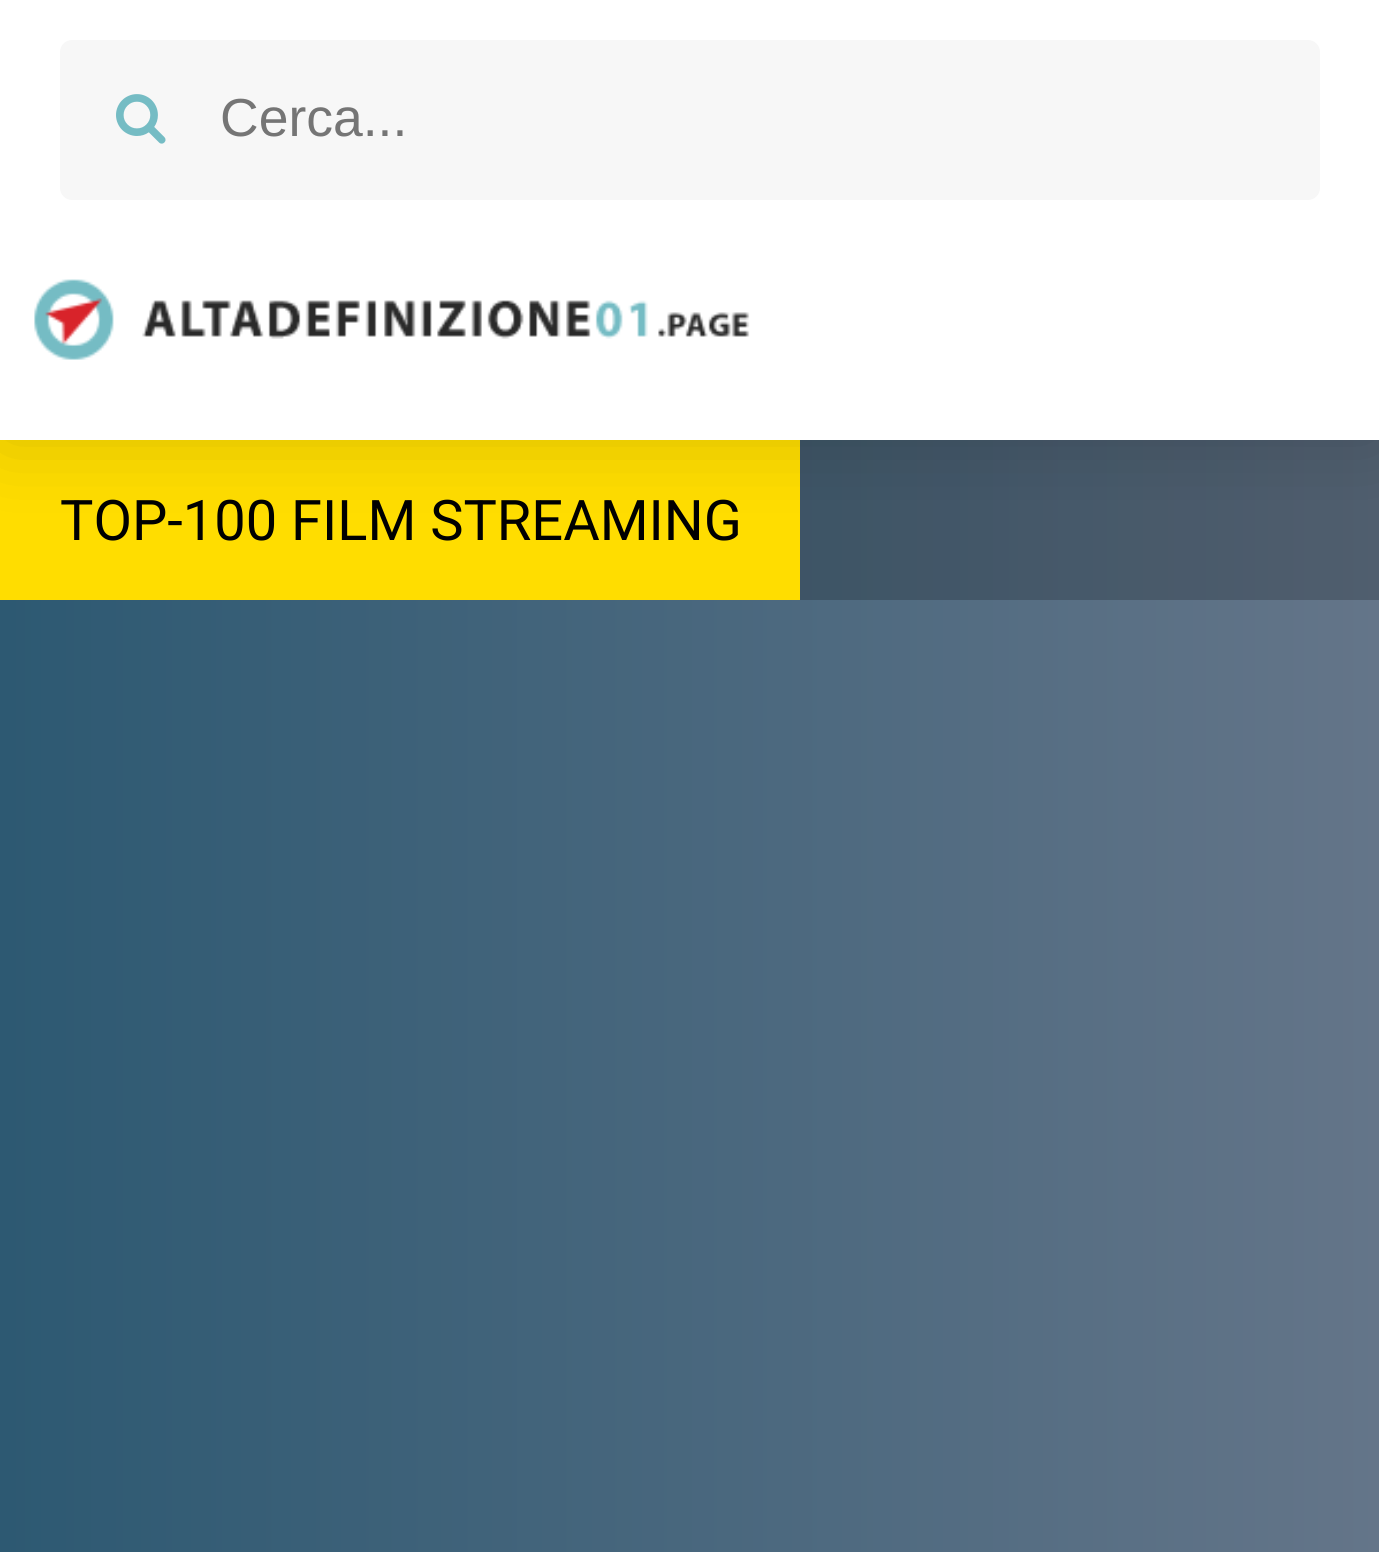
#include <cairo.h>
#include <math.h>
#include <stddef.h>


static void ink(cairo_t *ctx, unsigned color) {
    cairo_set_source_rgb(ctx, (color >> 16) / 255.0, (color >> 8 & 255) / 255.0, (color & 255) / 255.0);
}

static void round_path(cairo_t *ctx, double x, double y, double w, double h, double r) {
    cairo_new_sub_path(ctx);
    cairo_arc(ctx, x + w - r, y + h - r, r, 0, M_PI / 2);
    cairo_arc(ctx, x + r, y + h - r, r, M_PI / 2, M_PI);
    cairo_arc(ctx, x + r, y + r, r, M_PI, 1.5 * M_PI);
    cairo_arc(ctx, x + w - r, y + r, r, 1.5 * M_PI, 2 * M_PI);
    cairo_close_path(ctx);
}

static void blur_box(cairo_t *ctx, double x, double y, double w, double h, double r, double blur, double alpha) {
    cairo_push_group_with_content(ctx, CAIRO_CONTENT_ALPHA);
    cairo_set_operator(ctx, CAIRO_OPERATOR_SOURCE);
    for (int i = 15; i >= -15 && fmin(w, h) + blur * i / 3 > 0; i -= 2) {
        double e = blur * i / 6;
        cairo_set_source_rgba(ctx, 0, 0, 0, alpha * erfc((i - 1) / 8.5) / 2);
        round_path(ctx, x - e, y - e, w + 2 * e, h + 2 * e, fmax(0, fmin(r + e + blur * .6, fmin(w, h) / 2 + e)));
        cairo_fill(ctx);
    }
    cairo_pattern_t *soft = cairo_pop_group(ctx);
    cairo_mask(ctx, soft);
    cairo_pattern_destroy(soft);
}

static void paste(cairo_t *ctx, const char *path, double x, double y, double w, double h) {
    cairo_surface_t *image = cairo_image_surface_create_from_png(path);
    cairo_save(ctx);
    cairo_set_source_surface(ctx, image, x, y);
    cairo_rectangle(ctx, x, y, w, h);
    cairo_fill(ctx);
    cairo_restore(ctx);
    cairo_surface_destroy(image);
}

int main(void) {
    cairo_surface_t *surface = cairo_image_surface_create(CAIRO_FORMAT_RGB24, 1379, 1552);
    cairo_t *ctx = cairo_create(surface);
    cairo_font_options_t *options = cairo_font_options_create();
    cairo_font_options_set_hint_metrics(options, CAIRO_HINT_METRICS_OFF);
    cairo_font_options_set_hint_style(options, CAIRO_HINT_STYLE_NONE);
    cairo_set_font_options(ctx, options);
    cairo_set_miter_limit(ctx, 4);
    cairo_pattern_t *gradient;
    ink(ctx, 0xFFFFFF);
    cairo_paint(ctx);
    gradient = cairo_pattern_create_linear(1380, 1000, 0, 1000);
    cairo_pattern_add_color_stop_rgba(gradient, 0, 0.392, 0.459, 0.537, 1);
    cairo_pattern_add_color_stop_rgba(gradient, 1, 0.176, 0.349, 0.447, 1);
    cairo_set_source(ctx, gradient);
    cairo_pattern_destroy(gradient);
    cairo_rectangle(ctx, 0, 440, 1379, 1112);
    cairo_fill(ctx);
    cairo_set_source_rgba(ctx, 0, 0, 0, 0.2);
    cairo_rectangle(ctx, 800, 440, 579, 160);
    cairo_fill(ctx);
    ink(ctx, 0xFFDD00);
    cairo_rectangle(ctx, 0, 440, 800, 160);
    cairo_fill(ctx);
    ink(ctx, 0x000000);
    blur_box(ctx, 0, 0, 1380, 440, 0, 40, 0.15);
    ink(ctx, 0xFFFFFF);
    cairo_rectangle(ctx, 0, 0, 1379, 440);
    cairo_fill(ctx);
    ink(ctx, 0xF7F7F7);
    round_path(ctx, 60, 40, 1260, 160, 12);
    cairo_fill(ctx);
    paste(ctx, "media/1.png", 116, 94, 50, 50);
    cairo_select_font_face(ctx, "Liberation Sans", CAIRO_FONT_SLANT_NORMAL, CAIRO_FONT_WEIGHT_NORMAL);
    cairo_set_font_size(ctx, 53.5);
    ink(ctx, 0x757575);
    cairo_move_to(ctx, 220, 136);
    cairo_show_text(ctx, "Cerca...");
    paste(ctx, "media/2.png", 34, 279, 716, 81);
    cairo_select_font_face(ctx, "Roboto", CAIRO_FONT_SLANT_NORMAL, CAIRO_FONT_WEIGHT_NORMAL);
    cairo_set_font_size(ctx, 56);
    ink(ctx, 0x000000);
    cairo_move_to(ctx, 60, 540);
    cairo_show_text(ctx, "TOP-100 FILM STREAMING");
    cairo_surface_write_to_png(surface, "image.png");
    cairo_font_options_destroy(options);
    cairo_destroy(ctx);
    cairo_surface_destroy(surface);
    return 0;
}
